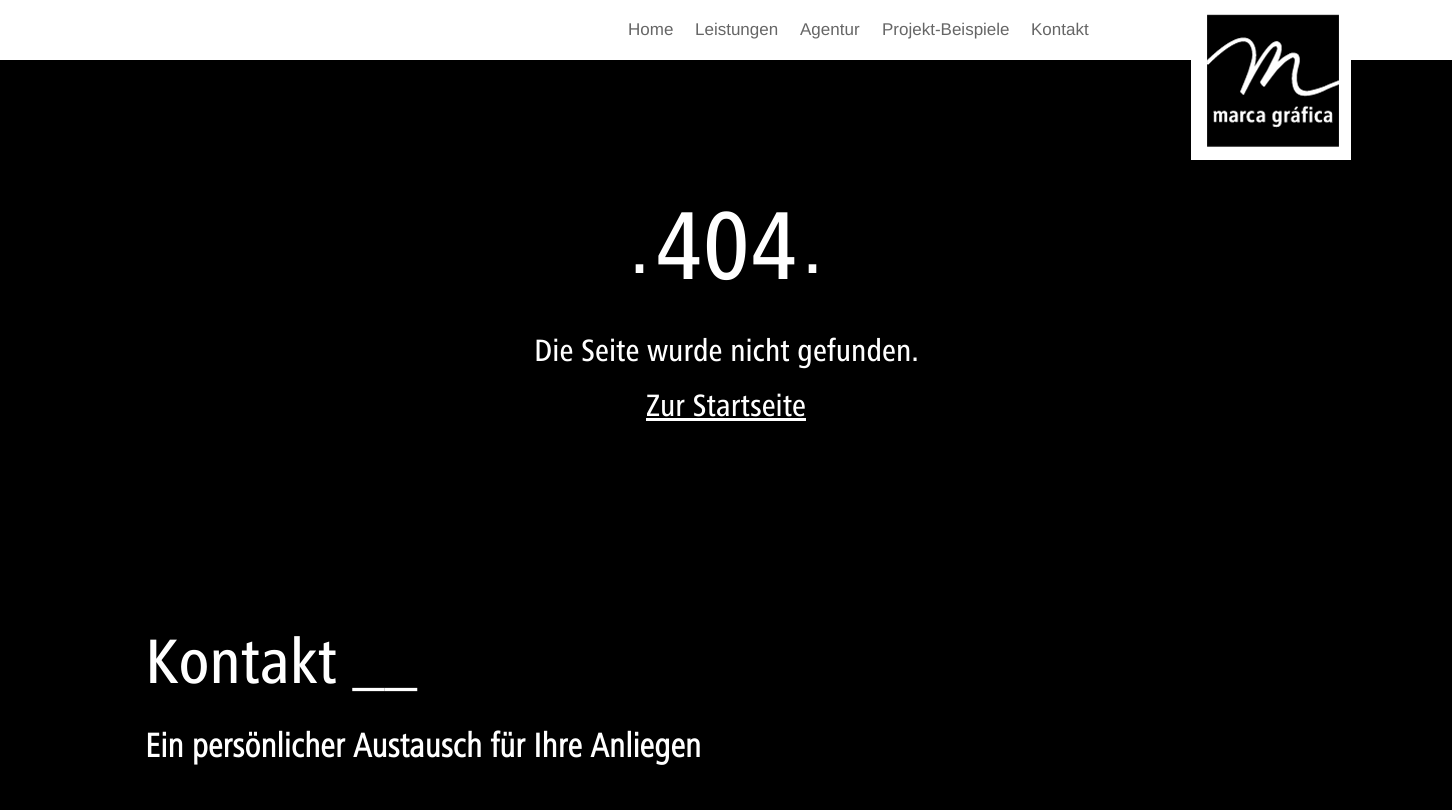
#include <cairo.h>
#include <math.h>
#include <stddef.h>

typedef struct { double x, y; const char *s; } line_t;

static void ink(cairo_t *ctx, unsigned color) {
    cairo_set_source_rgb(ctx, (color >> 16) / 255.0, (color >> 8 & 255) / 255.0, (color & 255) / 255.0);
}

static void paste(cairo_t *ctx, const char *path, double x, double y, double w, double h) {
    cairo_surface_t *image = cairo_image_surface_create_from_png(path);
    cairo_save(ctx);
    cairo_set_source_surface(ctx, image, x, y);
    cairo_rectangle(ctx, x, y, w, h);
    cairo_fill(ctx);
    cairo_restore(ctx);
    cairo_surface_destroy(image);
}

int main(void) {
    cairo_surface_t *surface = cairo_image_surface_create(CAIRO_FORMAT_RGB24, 1452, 810);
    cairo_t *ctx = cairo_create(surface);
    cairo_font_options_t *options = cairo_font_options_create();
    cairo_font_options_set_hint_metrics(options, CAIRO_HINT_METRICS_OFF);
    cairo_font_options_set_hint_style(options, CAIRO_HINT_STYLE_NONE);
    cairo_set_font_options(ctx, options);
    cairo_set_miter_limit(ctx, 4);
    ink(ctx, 0x000000);
    cairo_paint(ctx);
    ink(ctx, 0xFFFFFF);
    cairo_rectangle(ctx, 0, 0, 1452, 60);
    cairo_fill(ctx);
    cairo_select_font_face(ctx, "Liberation Sans", CAIRO_FONT_SLANT_NORMAL, CAIRO_FONT_WEIGHT_NORMAL);
    cairo_set_font_size(ctx, 17);
    ink(ctx, 0x666666);
    {
        static const line_t items[] = {
            {628, 35, "Home"},
            {695, 35, "Leistungen"},
            {800, 35, "Agentur"},
            {882, 35, "Projekt-Beispiele"},
            {1031, 35, "Kontakt"},
        };
        for (size_t i = 0; i < sizeof items / sizeof *items; i++) {
            cairo_move_to(ctx, items[i].x, items[i].y);
            cairo_show_text(ctx, items[i].s);
        }
    }
    paste(ctx, "media/1.png", 1191, 14, 160, 146);
    cairo_select_font_face(ctx, "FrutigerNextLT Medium", CAIRO_FONT_SLANT_NORMAL, CAIRO_FONT_WEIGHT_NORMAL);
    cairo_set_font_size(ctx, 80);
    ink(ctx, 0xFFFFFF);
    cairo_move_to(ctx, 630, 273);
    cairo_show_text(ctx, ".");
    cairo_set_font_size(ctx, 100);
    cairo_move_to(ctx, 655, 279);
    cairo_show_text(ctx, "404");
    cairo_set_font_size(ctx, 80);
    cairo_move_to(ctx, 803, 273);
    cairo_show_text(ctx, ".");
    cairo_set_font_size(ctx, 32);
    cairo_move_to(ctx, 534, 361);
    cairo_show_text(ctx, "Die Seite wurde nicht gefunden.");
    cairo_move_to(ctx, 646, 416);
    cairo_show_text(ctx, "Zur Startseite");
    cairo_rectangle(ctx, 646, 418, 160, 3);
    cairo_fill(ctx);
    cairo_set_font_size(ctx, 65);
    cairo_move_to(ctx, 145, 683);
    cairo_show_text(ctx, "Kontakt __");
    cairo_select_font_face(ctx, "FrutigerNextLT", CAIRO_FONT_SLANT_NORMAL, CAIRO_FONT_WEIGHT_BOLD);
    cairo_set_font_size(ctx, 35);
    cairo_move_to(ctx, 145, 757);
    cairo_show_text(ctx, "Ein persönlicher Austausch für Ihre Anliegen");
    cairo_surface_write_to_png(surface, "image.png");
    cairo_font_options_destroy(options);
    cairo_destroy(ctx);
    cairo_surface_destroy(surface);
    return 0;
}
